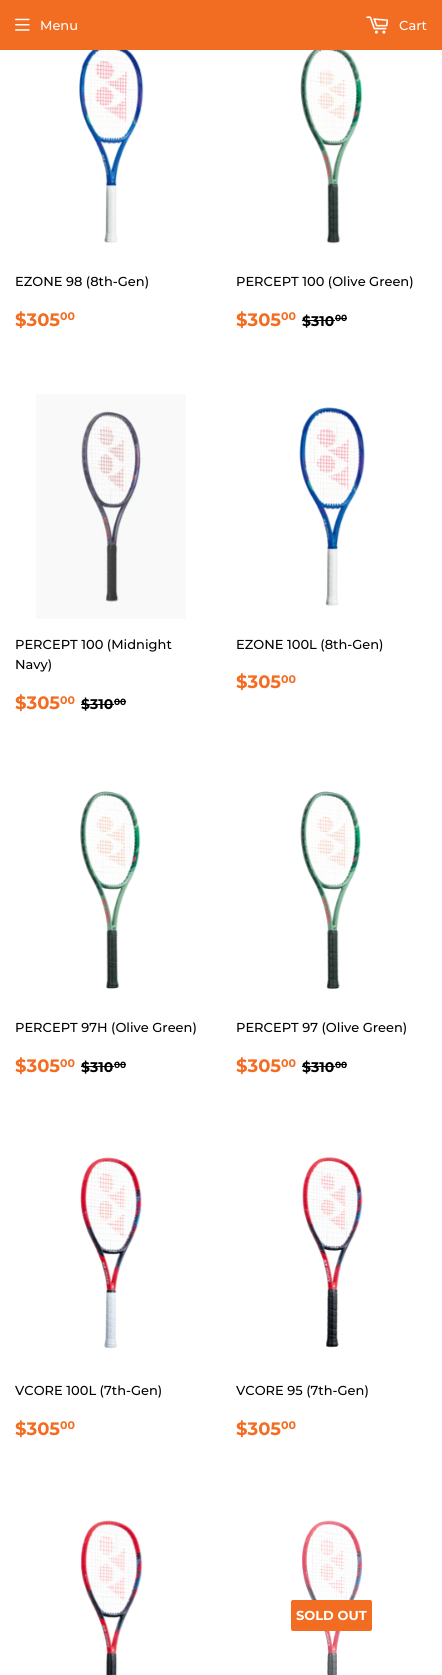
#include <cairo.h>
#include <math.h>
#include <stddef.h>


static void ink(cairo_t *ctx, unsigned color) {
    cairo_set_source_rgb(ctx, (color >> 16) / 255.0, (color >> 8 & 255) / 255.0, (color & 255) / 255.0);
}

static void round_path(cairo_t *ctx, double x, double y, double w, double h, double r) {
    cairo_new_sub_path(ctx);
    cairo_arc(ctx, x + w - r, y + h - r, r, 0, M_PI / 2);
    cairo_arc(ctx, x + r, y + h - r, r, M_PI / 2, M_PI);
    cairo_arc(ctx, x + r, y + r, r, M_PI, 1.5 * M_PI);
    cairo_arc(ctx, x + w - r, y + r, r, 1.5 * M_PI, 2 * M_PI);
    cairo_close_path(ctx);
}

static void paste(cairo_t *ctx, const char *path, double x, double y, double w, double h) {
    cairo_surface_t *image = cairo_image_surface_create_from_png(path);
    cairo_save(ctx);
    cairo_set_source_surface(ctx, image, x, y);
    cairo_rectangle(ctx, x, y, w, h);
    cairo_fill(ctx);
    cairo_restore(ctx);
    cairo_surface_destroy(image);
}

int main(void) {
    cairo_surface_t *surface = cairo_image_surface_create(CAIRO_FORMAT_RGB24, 442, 1675);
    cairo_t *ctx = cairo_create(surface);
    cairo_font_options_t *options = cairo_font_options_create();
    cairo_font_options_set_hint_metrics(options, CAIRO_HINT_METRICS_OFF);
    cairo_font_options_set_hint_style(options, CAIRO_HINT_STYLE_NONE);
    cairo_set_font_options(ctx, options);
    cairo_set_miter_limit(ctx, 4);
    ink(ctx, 0xFFFFFF);
    cairo_paint(ctx);
    ink(ctx, 0xF26C21);
    cairo_rectangle(ctx, 0, 0, 442, 50);
    cairo_fill(ctx);
    paste(ctx, "media/1.png", 15, 18, 15, 13);
    cairo_select_font_face(ctx, "Montserrat Medium", CAIRO_FONT_SLANT_NORMAL, CAIRO_FONT_WEIGHT_NORMAL);
    cairo_set_font_size(ctx, 13);
    ink(ctx, 0xFFFFFF);
    cairo_move_to(ctx, 40, 30);
    cairo_show_text(ctx, "Menu");
    paste(ctx, "media/2.png", 366, 16, 23, 18);
    cairo_move_to(ctx, 399, 30);
    cairo_show_text(ctx, "Cart");
    paste(ctx, "media/3.png", 79, 50, 65, 193);
    ink(ctx, 0x000000);
    cairo_move_to(ctx, 15, 286);
    cairo_show_text(ctx, "EZONE 98 (8th-Gen)");
    cairo_select_font_face(ctx, "Montserrat", CAIRO_FONT_SLANT_NORMAL, CAIRO_FONT_WEIGHT_BOLD);
    cairo_set_font_size(ctx, 18);
    ink(ctx, 0xF26C21);
    cairo_move_to(ctx, 15, 326);
    cairo_show_text(ctx, "$305");
    cairo_set_font_size(ctx, 11);
    cairo_move_to(ctx, 60, 320);
    cairo_show_text(ctx, "00");
    paste(ctx, "media/4.png", 300, 50, 63, 194);
    cairo_select_font_face(ctx, "Montserrat Medium", CAIRO_FONT_SLANT_NORMAL, CAIRO_FONT_WEIGHT_NORMAL);
    cairo_set_font_size(ctx, 13);
    ink(ctx, 0x000000);
    cairo_move_to(ctx, 236, 286);
    cairo_show_text(ctx, "PERCEPT 100 (Olive Green)");
    cairo_select_font_face(ctx, "Montserrat", CAIRO_FONT_SLANT_NORMAL, CAIRO_FONT_WEIGHT_BOLD);
    cairo_set_font_size(ctx, 18);
    ink(ctx, 0xF26C21);
    cairo_move_to(ctx, 236, 326);
    cairo_show_text(ctx, "$305");
    cairo_set_font_size(ctx, 11);
    cairo_move_to(ctx, 281, 320);
    cairo_show_text(ctx, "00");
    cairo_set_font_size(ctx, 14);
    ink(ctx, 0x000000);
    cairo_move_to(ctx, 302, 326);
    cairo_show_text(ctx, "$310");
    cairo_rectangle(ctx, 302, 320, 33, 1);
    cairo_fill(ctx);
    cairo_set_font_size(ctx, 9);
    cairo_move_to(ctx, 335, 321);
    cairo_show_text(ctx, "00");
    cairo_rectangle(ctx, 335, 318, 12, 1);
    cairo_fill(ctx);
    paste(ctx, "media/5.png", 36, 394, 150, 225);
    cairo_select_font_face(ctx, "Montserrat Medium", CAIRO_FONT_SLANT_NORMAL, CAIRO_FONT_WEIGHT_NORMAL);
    cairo_set_font_size(ctx, 13);
    cairo_move_to(ctx, 15, 649);
    cairo_show_text(ctx, "PERCEPT 100 (Midnight");
    cairo_move_to(ctx, 15, 669);
    cairo_show_text(ctx, "Navy)");
    cairo_select_font_face(ctx, "Montserrat", CAIRO_FONT_SLANT_NORMAL, CAIRO_FONT_WEIGHT_BOLD);
    cairo_set_font_size(ctx, 18);
    ink(ctx, 0xF26C21);
    cairo_move_to(ctx, 15, 709);
    cairo_show_text(ctx, "$305");
    cairo_set_font_size(ctx, 11);
    cairo_move_to(ctx, 60, 704);
    cairo_show_text(ctx, "00");
    cairo_set_font_size(ctx, 14);
    ink(ctx, 0x000000);
    cairo_move_to(ctx, 81, 709);
    cairo_show_text(ctx, "$310");
    cairo_rectangle(ctx, 81, 704, 33, 1);
    cairo_fill(ctx);
    cairo_set_font_size(ctx, 9);
    cairo_move_to(ctx, 114, 705);
    cairo_show_text(ctx, "00");
    cairo_rectangle(ctx, 114, 701, 12, 1);
    cairo_fill(ctx);
    paste(ctx, "media/6.png", 299, 407, 66, 199);
    cairo_select_font_face(ctx, "Montserrat Medium", CAIRO_FONT_SLANT_NORMAL, CAIRO_FONT_WEIGHT_NORMAL);
    cairo_set_font_size(ctx, 13);
    cairo_move_to(ctx, 236, 649);
    cairo_show_text(ctx, "EZONE 100L (8th-Gen)");
    cairo_select_font_face(ctx, "Montserrat", CAIRO_FONT_SLANT_NORMAL, CAIRO_FONT_WEIGHT_BOLD);
    cairo_set_font_size(ctx, 18);
    ink(ctx, 0xF26C21);
    cairo_move_to(ctx, 236, 688);
    cairo_show_text(ctx, "$305");
    cairo_set_font_size(ctx, 11);
    cairo_move_to(ctx, 281, 683);
    cairo_show_text(ctx, "00");
    paste(ctx, "media/7.png", 80, 791, 61, 198);
    cairo_select_font_face(ctx, "Montserrat Medium", CAIRO_FONT_SLANT_NORMAL, CAIRO_FONT_WEIGHT_NORMAL);
    cairo_set_font_size(ctx, 13);
    ink(ctx, 0x000000);
    cairo_move_to(ctx, 15, 1032);
    cairo_show_text(ctx, "PERCEPT 97H (Olive Green)");
    cairo_select_font_face(ctx, "Montserrat", CAIRO_FONT_SLANT_NORMAL, CAIRO_FONT_WEIGHT_BOLD);
    cairo_set_font_size(ctx, 18);
    ink(ctx, 0xF26C21);
    cairo_move_to(ctx, 15, 1072);
    cairo_show_text(ctx, "$305");
    cairo_set_font_size(ctx, 11);
    cairo_move_to(ctx, 60, 1067);
    cairo_show_text(ctx, "00");
    cairo_set_font_size(ctx, 14);
    ink(ctx, 0x000000);
    cairo_move_to(ctx, 81, 1072);
    cairo_show_text(ctx, "$310");
    cairo_rectangle(ctx, 81, 1066, 33, 1);
    cairo_fill(ctx);
    cairo_set_font_size(ctx, 9);
    cairo_move_to(ctx, 114, 1068);
    cairo_show_text(ctx, "00");
    cairo_rectangle(ctx, 114, 1064, 12, 1);
    cairo_fill(ctx);
    paste(ctx, "media/8.png", 300, 791, 61, 198);
    cairo_select_font_face(ctx, "Montserrat Medium", CAIRO_FONT_SLANT_NORMAL, CAIRO_FONT_WEIGHT_NORMAL);
    cairo_set_font_size(ctx, 13);
    cairo_move_to(ctx, 236, 1032);
    cairo_show_text(ctx, "PERCEPT 97 (Olive Green)");
    cairo_select_font_face(ctx, "Montserrat", CAIRO_FONT_SLANT_NORMAL, CAIRO_FONT_WEIGHT_BOLD);
    cairo_set_font_size(ctx, 18);
    ink(ctx, 0xF26C21);
    cairo_move_to(ctx, 236, 1072);
    cairo_show_text(ctx, "$305");
    cairo_set_font_size(ctx, 11);
    cairo_move_to(ctx, 281, 1067);
    cairo_show_text(ctx, "00");
    cairo_set_font_size(ctx, 14);
    ink(ctx, 0x000000);
    cairo_move_to(ctx, 302, 1072);
    cairo_show_text(ctx, "$310");
    cairo_rectangle(ctx, 302, 1066, 33, 1);
    cairo_fill(ctx);
    cairo_set_font_size(ctx, 9);
    cairo_move_to(ctx, 335, 1068);
    cairo_show_text(ctx, "00");
    cairo_rectangle(ctx, 335, 1064, 12, 1);
    cairo_fill(ctx);
    paste(ctx, "media/9.png", 80, 1157, 62, 192);
    cairo_select_font_face(ctx, "Montserrat Medium", CAIRO_FONT_SLANT_NORMAL, CAIRO_FONT_WEIGHT_NORMAL);
    cairo_set_font_size(ctx, 13);
    cairo_move_to(ctx, 15, 1395);
    cairo_show_text(ctx, "VCORE 100L (7th-Gen)");
    cairo_select_font_face(ctx, "Montserrat", CAIRO_FONT_SLANT_NORMAL, CAIRO_FONT_WEIGHT_BOLD);
    cairo_set_font_size(ctx, 18);
    ink(ctx, 0xF26C21);
    cairo_move_to(ctx, 15, 1435);
    cairo_show_text(ctx, "$305");
    cairo_set_font_size(ctx, 11);
    cairo_move_to(ctx, 60, 1429);
    cairo_show_text(ctx, "00");
    paste(ctx, "media/10.png", 302, 1157, 61, 191);
    cairo_select_font_face(ctx, "Montserrat Medium", CAIRO_FONT_SLANT_NORMAL, CAIRO_FONT_WEIGHT_NORMAL);
    cairo_set_font_size(ctx, 13);
    ink(ctx, 0x000000);
    cairo_move_to(ctx, 236, 1395);
    cairo_show_text(ctx, "VCORE 95 (7th-Gen)");
    cairo_select_font_face(ctx, "Montserrat", CAIRO_FONT_SLANT_NORMAL, CAIRO_FONT_WEIGHT_BOLD);
    cairo_set_font_size(ctx, 18);
    ink(ctx, 0xF26C21);
    cairo_move_to(ctx, 236, 1435);
    cairo_show_text(ctx, "$305");
    cairo_set_font_size(ctx, 11);
    cairo_move_to(ctx, 281, 1429);
    cairo_show_text(ctx, "00");
    paste(ctx, "media/11.png", 80, 1520, 63, 155);
    paste(ctx, "media/12.png", 302, 1520, 61, 155);
    round_path(ctx, 291, 1600, 81, 31, 2);
    cairo_fill(ctx);
    cairo_set_font_size(ctx, 13);
    ink(ctx, 0xFFFFFF);
    cairo_move_to(ctx, 296, 1620);
    cairo_show_text(ctx, "SOLD OUT");
    cairo_surface_write_to_png(surface, "image.png");
    cairo_font_options_destroy(options);
    cairo_destroy(ctx);
    cairo_surface_destroy(surface);
    return 0;
}
